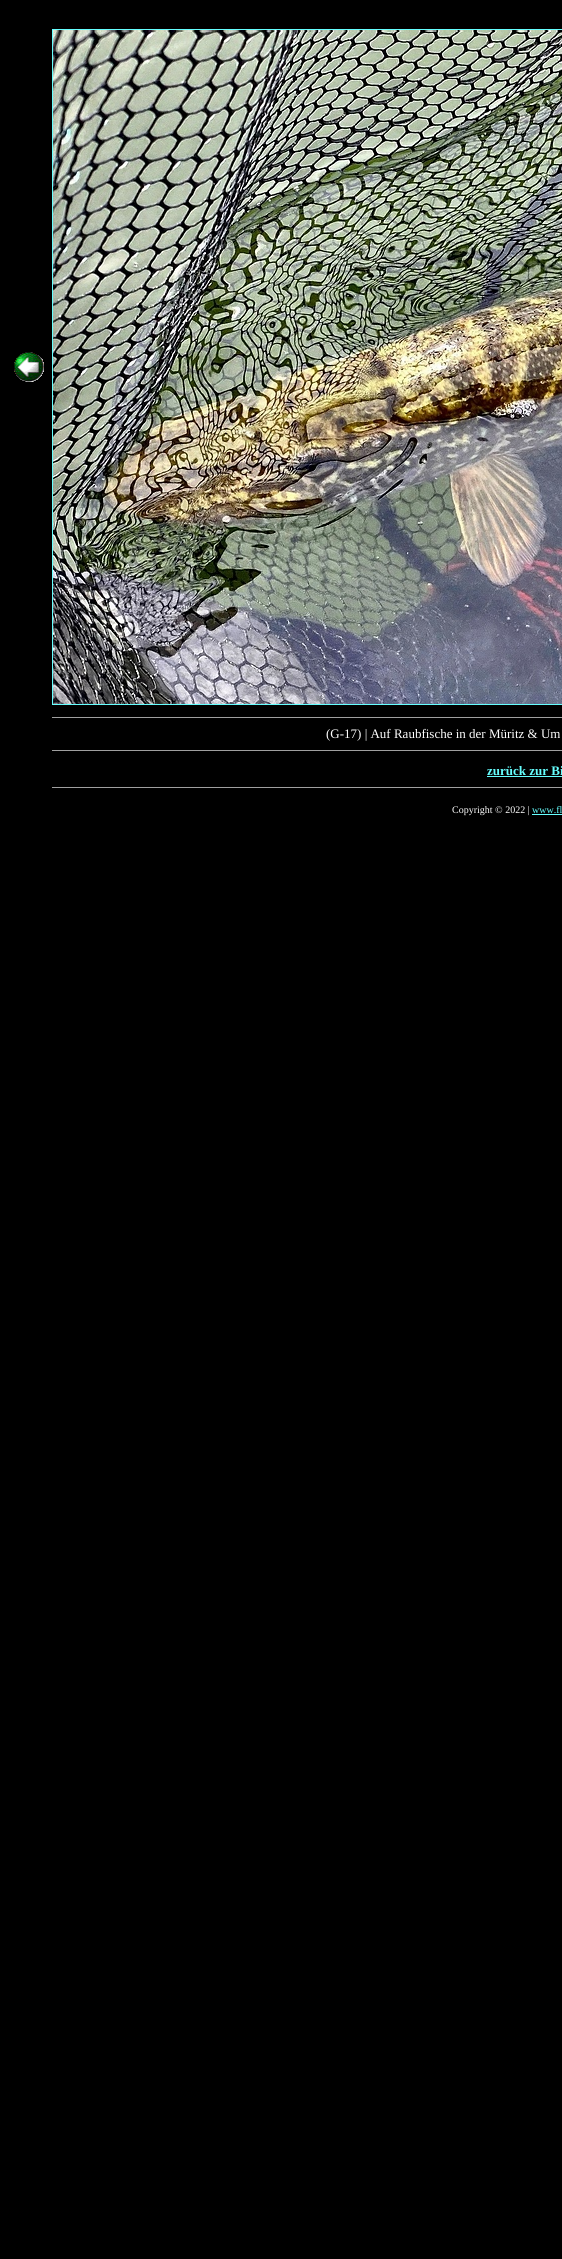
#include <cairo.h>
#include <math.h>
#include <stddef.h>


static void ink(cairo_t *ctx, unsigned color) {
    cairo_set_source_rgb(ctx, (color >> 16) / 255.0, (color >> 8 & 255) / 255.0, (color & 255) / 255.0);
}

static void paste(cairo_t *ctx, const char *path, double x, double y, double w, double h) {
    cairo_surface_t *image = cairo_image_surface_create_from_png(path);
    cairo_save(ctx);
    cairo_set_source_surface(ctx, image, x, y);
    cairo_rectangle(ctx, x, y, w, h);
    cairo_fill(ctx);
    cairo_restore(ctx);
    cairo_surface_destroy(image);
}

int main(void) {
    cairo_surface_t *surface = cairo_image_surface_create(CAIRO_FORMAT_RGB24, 562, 2259);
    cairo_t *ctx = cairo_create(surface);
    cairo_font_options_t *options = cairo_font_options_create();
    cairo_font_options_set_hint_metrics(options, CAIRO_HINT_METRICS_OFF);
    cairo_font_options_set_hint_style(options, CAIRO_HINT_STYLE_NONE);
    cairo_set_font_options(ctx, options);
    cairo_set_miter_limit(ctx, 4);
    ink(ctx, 0x000000);
    cairo_paint(ctx);
    paste(ctx, "media/1.png", 14, 352, 30, 30);
    cairo_rectangle(ctx, 52.5, 29.5, 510, 675);
    ink(ctx, 0x66FFFF);
    cairo_set_line_width(ctx, 1);
    cairo_stroke(ctx);
    paste(ctx, "media/2.png", 53, 30, 509, 674);
    ink(ctx, 0x9F9F9F);
    cairo_rectangle(ctx, 52, 717, 510, 1);
    cairo_fill(ctx);
    cairo_select_font_face(ctx, "Liberation Serif", CAIRO_FONT_SLANT_NORMAL, CAIRO_FONT_WEIGHT_NORMAL);
    cairo_set_font_size(ctx, 13);
    ink(ctx, 0xFFFFFF);
    cairo_move_to(ctx, 326, 738);
    cairo_show_text(ctx, "(G-17) | Auf Raubfische in der Müritz & Um");
    ink(ctx, 0x9F9F9F);
    cairo_rectangle(ctx, 52, 750, 510, 1);
    cairo_fill(ctx);
    cairo_select_font_face(ctx, "Liberation Serif", CAIRO_FONT_SLANT_NORMAL, CAIRO_FONT_WEIGHT_BOLD);
    ink(ctx, 0x66FFFF);
    cairo_move_to(ctx, 487, 775);
    cairo_show_text(ctx, "zurück zur Bi");
    cairo_rectangle(ctx, 487, 776, 75, 1);
    cairo_fill(ctx);
    ink(ctx, 0x9F9F9F);
    cairo_rectangle(ctx, 52, 787, 510, 1);
    cairo_fill(ctx);
    cairo_select_font_face(ctx, "Liberation Serif", CAIRO_FONT_SLANT_NORMAL, CAIRO_FONT_WEIGHT_NORMAL);
    cairo_set_font_size(ctx, 10);
    ink(ctx, 0xFFFFFF);
    cairo_move_to(ctx, 452, 813);
    cairo_show_text(ctx, "Copyright © 2022 |");
    ink(ctx, 0x66FFFF);
    cairo_rectangle(ctx, 532, 814, 30, 1);
    cairo_fill(ctx);
    cairo_move_to(ctx, 532, 813);
    cairo_show_text(ctx, "www.fl");
    cairo_surface_write_to_png(surface, "image.png");
    cairo_font_options_destroy(options);
    cairo_destroy(ctx);
    cairo_surface_destroy(surface);
    return 0;
}
